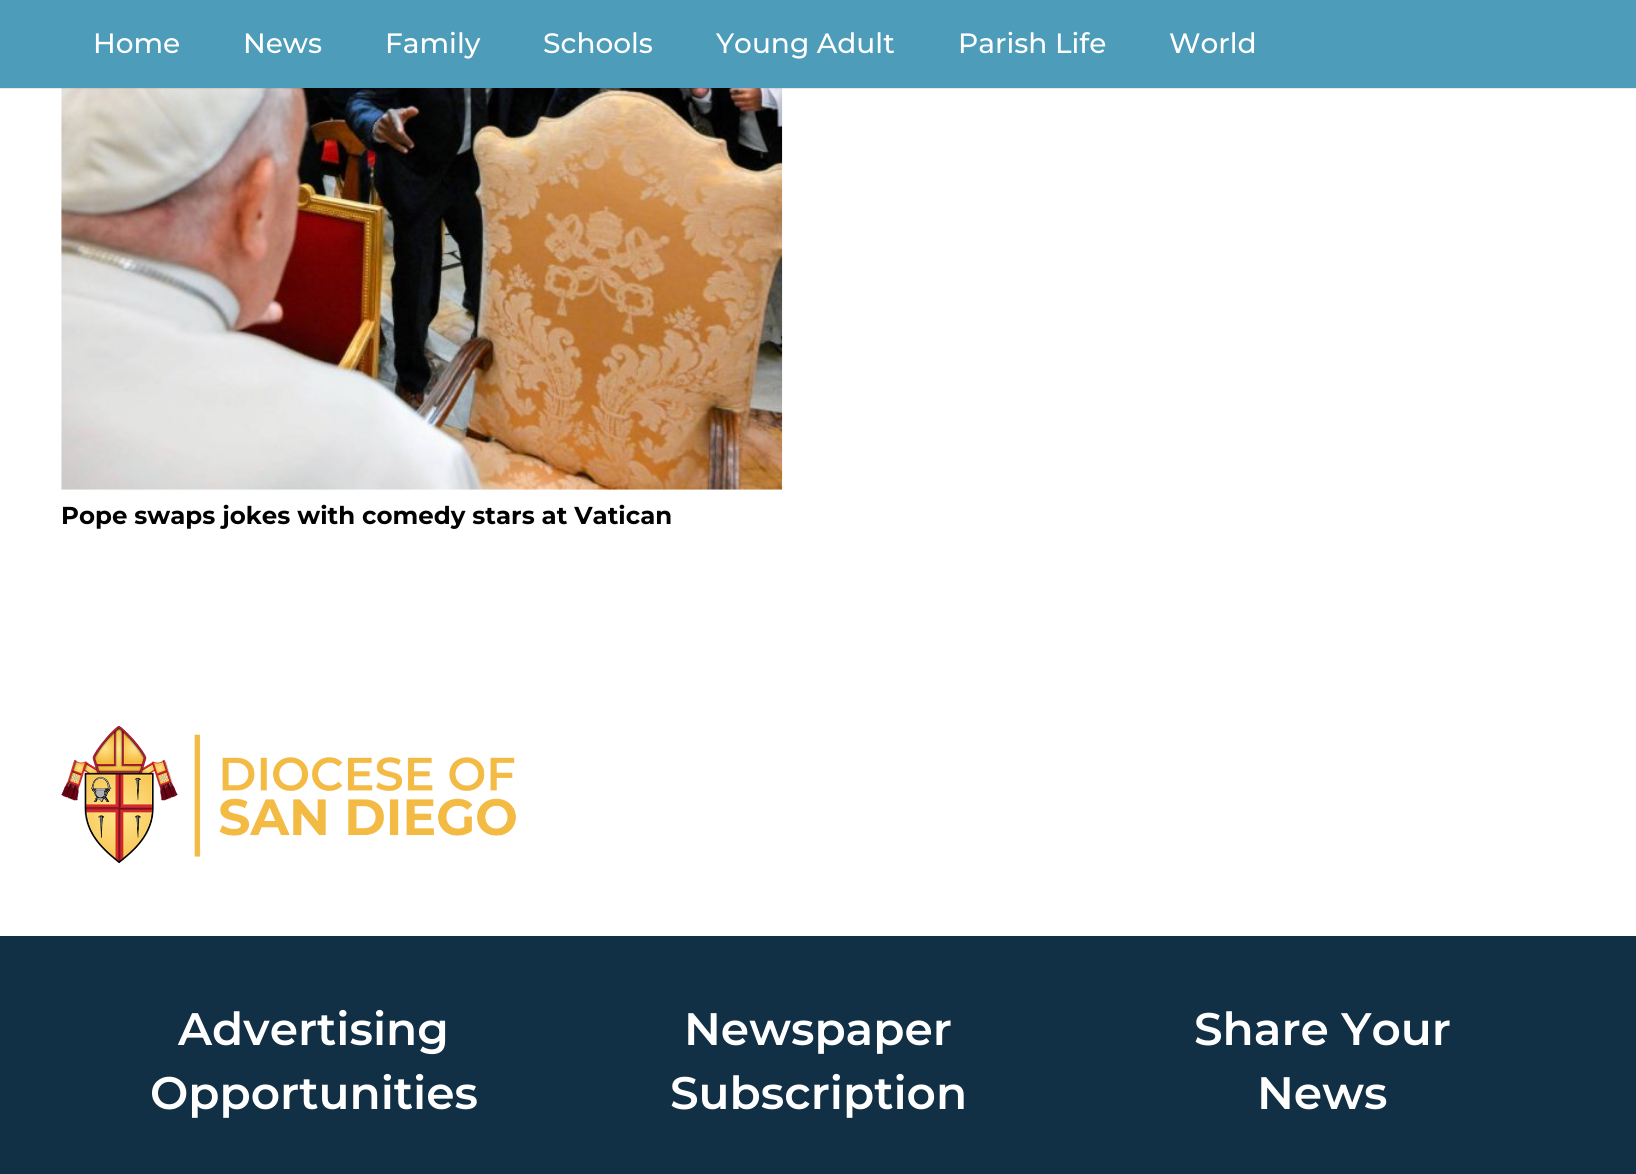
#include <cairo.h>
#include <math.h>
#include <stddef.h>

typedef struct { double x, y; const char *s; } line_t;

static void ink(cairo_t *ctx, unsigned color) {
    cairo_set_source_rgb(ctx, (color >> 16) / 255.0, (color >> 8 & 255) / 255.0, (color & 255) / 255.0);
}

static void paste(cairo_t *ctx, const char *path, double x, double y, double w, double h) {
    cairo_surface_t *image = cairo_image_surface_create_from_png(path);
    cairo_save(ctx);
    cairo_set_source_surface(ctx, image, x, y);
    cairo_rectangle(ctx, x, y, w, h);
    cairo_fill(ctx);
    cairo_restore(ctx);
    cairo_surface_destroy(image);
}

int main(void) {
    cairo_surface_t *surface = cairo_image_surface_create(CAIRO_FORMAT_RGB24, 1636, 1174);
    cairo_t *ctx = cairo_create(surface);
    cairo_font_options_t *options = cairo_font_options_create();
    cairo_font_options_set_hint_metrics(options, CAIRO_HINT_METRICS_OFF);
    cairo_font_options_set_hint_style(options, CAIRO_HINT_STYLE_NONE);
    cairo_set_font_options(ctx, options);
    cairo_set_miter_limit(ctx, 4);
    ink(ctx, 0xFFFFFF);
    cairo_paint(ctx);
    paste(ctx, "media/1.png", 61, 88, 722, 402);
    cairo_set_source_rgba(ctx, 0, 0, 0, 0.08);
    cairo_rectangle(ctx, 0, 88, 1636, 1);
    cairo_fill(ctx);
    ink(ctx, 0x4D9CB9);
    cairo_rectangle(ctx, 0, 0, 1636, 88);
    cairo_fill(ctx);
    cairo_select_font_face(ctx, "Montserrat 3 Thin", CAIRO_FONT_SLANT_NORMAL, CAIRO_FONT_WEIGHT_NORMAL);
    cairo_set_font_size(ctx, 28);
    ink(ctx, 0xFFFFFF);
    {
        static const line_t items[] = {
            {93, 53, "Home"},
            {243, 53, "News"},
            {385, 53, "Family"},
            {543, 53, "Schools"},
            {716, 53, "Young Adult"},
            {958, 53, "Parish Life"},
            {1169, 53, "World"},
        };
        for (size_t i = 0; i < sizeof items / sizeof *items; i++) {
            cairo_move_to(ctx, items[i].x, items[i].y);
            cairo_show_text(ctx, items[i].s);
        }
    }
    cairo_select_font_face(ctx, "Montserrat Thin", CAIRO_FONT_SLANT_NORMAL, CAIRO_FONT_WEIGHT_NORMAL);
    cairo_set_font_size(ctx, 24.5);
    ink(ctx, 0x020202);
    cairo_move_to(ctx, 61, 524);
    cairo_show_text(ctx, "Pope swaps jokes with comedy stars at Vatican");
    paste(ctx, "media/2.png", 61, 726, 455, 138);
    ink(ctx, 0x112F45);
    cairo_rectangle(ctx, 0, 936, 1636, 238);
    cairo_fill(ctx);
    cairo_select_font_face(ctx, "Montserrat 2 Thin", CAIRO_FONT_SLANT_NORMAL, CAIRO_FONT_WEIGHT_NORMAL);
    cairo_set_font_size(ctx, 45.5);
    ink(ctx, 0xFFFFFF);
    {
        static const line_t items[] = {
            {178, 1045, "Advertising"},
            {150, 1109, "Opportunities"},
            {684, 1045, "Newspaper"},
            {670, 1109, "Subscription"},
            {1194, 1045, "Share Your"},
            {1257, 1109, "News"},
        };
        for (size_t i = 0; i < sizeof items / sizeof *items; i++) {
            cairo_move_to(ctx, items[i].x, items[i].y);
            cairo_show_text(ctx, items[i].s);
        }
    }
    cairo_surface_write_to_png(surface, "image.png");
    cairo_font_options_destroy(options);
    cairo_destroy(ctx);
    cairo_surface_destroy(surface);
    return 0;
}
